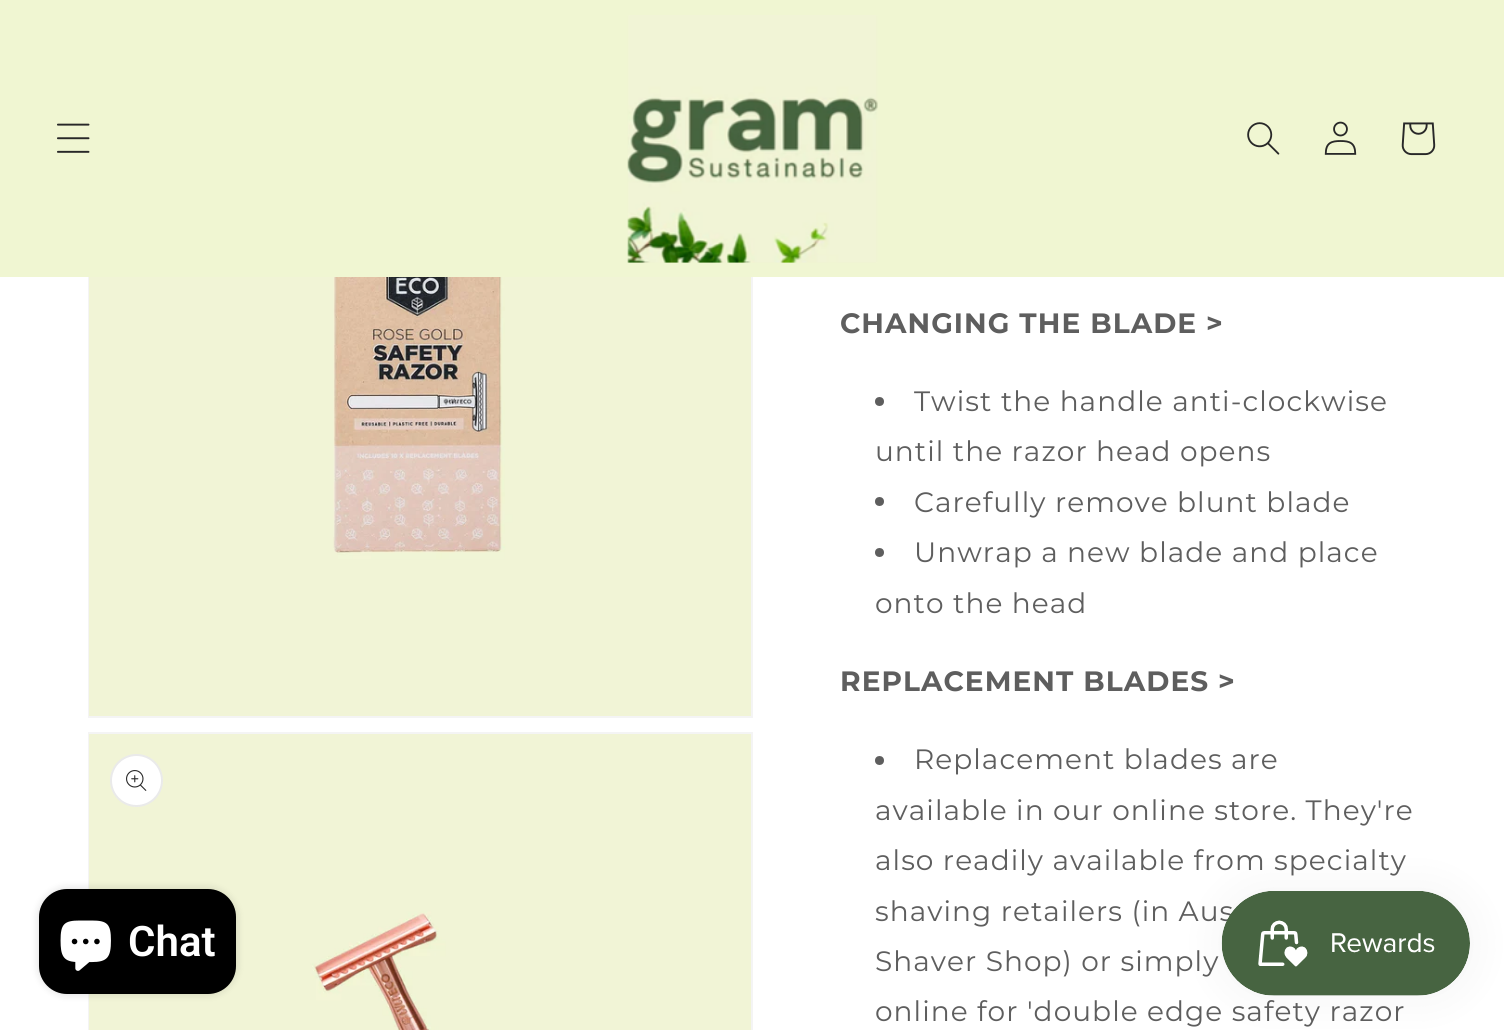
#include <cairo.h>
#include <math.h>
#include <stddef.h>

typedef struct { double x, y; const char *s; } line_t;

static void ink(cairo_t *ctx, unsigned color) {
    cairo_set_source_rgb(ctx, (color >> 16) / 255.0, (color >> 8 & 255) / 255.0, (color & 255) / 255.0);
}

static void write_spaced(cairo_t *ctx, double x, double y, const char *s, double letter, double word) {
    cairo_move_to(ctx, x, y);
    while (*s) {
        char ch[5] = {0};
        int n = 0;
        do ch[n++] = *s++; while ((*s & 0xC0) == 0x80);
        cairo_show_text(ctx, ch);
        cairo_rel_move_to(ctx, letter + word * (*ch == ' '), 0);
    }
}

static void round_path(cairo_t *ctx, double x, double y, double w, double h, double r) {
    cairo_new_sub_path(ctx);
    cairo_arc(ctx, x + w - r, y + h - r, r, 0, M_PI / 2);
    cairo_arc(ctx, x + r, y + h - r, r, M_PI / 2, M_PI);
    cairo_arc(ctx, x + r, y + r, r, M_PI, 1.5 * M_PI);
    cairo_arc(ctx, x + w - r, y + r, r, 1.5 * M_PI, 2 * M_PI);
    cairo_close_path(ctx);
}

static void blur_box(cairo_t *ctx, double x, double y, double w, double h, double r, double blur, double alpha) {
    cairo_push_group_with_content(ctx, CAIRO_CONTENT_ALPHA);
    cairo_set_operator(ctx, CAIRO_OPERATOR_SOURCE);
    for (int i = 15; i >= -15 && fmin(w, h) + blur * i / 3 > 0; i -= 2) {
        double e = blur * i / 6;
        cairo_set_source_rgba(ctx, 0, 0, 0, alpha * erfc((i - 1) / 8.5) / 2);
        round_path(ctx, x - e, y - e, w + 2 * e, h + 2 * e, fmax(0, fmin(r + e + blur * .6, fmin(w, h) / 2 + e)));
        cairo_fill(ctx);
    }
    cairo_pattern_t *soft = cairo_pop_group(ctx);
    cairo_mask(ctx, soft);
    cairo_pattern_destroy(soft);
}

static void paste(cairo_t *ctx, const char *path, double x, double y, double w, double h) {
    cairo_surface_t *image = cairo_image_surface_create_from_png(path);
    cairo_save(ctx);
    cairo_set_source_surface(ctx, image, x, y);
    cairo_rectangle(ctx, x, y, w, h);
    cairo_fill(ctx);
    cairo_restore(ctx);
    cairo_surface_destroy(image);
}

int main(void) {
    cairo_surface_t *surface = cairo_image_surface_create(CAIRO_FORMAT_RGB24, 1504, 1030);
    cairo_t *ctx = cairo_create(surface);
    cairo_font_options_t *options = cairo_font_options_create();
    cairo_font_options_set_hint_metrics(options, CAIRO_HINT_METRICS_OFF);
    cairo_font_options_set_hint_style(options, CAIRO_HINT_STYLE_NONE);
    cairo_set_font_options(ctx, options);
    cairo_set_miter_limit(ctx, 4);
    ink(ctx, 0xFFFFFF);
    cairo_paint(ctx);
    cairo_rectangle(ctx, 89, 54, 663, 663);
    ink(ctx, 0xF4F4F4);
    cairo_stroke(ctx);
    ink(ctx, 0xF0F6D2);
    cairo_rectangle(ctx, 0, 0, 1504, 277);
    cairo_fill(ctx);
    paste(ctx, "media/1.png", 57, 123, 33, 30);
    paste(ctx, "media/2.png", 627, 15, 251, 248);
    paste(ctx, "media/3.png", 1247, 122, 33, 33);
    paste(ctx, "media/4.png", 1324, 121, 33, 34);
    paste(ctx, "media/5.png", 1401, 122, 35, 34);
    paste(ctx, "media/6.png", 89, 277, 662, 439);
    cairo_rectangle(ctx, 89, 733, 663, 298);
    ink(ctx, 0xF4F4F4);
    cairo_stroke(ctx);
    paste(ctx, "media/7.png", 89, 734, 662, 296);
    ink(ctx, 0xFFFFFF);
    cairo_arc(ctx, 136.5, 780.5, 26.5, 0, 2 * M_PI);
    cairo_fill(ctx);
    cairo_arc(ctx, 136.5, 780.5, 25.5, 0, 2 * M_PI);
    cairo_set_source_rgba(ctx, 0.157, 0.157, 0.157, 0.1);
    cairo_stroke(ctx);
    paste(ctx, "media/8.png", 126, 770, 21, 21);
    cairo_select_font_face(ctx, "Montserrat", CAIRO_FONT_SLANT_NORMAL, CAIRO_FONT_WEIGHT_BOLD);
    cairo_set_font_size(ctx, 28);
    ink(ctx, 0x5E5E5E);
    write_spaced(ctx, 840, 333, "CHANGING THE BLADE >", 1.05, 0);
    cairo_new_path(ctx);
    cairo_arc(ctx, 879.5, 401.5, 4.5, 0, 2 * M_PI);
    cairo_fill(ctx);
    cairo_select_font_face(ctx, "Montserrat", CAIRO_FONT_SLANT_NORMAL, CAIRO_FONT_WEIGHT_NORMAL);
    write_spaced(ctx, 914, 411, "Twist the handle anti-clockwise", 1.05, 0);
    write_spaced(ctx, 875, 461, "until the razor head opens", 1.05, 0);
    cairo_new_path(ctx);
    cairo_arc(ctx, 879.5, 501.5, 4.5, 0, 2 * M_PI);
    cairo_fill(ctx);
    write_spaced(ctx, 914, 512, "Carefully remove blunt blade", 1.05, 0);
    cairo_new_path(ctx);
    cairo_arc(ctx, 879.5, 552.5, 4.5, 0, 2 * M_PI);
    cairo_fill(ctx);
    write_spaced(ctx, 914, 562, "Unwrap a new blade and place", 1.05, 0);
    write_spaced(ctx, 875, 613, "onto the head", 1.05, 0);
    cairo_select_font_face(ctx, "Montserrat", CAIRO_FONT_SLANT_NORMAL, CAIRO_FONT_WEIGHT_BOLD);
    write_spaced(ctx, 840, 691, "REPLACEMENT BLADES >", 1.05, 0);
    cairo_new_path(ctx);
    cairo_arc(ctx, 879.5, 760.5, 4.5, 0, 2 * M_PI);
    cairo_fill(ctx);
    cairo_select_font_face(ctx, "Montserrat", CAIRO_FONT_SLANT_NORMAL, CAIRO_FONT_WEIGHT_NORMAL);
    {
        static const line_t items[] = {
            {914, 769, "Replacement blades are"},
            {875, 820, "available in our online store. They're"},
            {875, 870, "also readily available from specialty"},
            {875, 921, "shaving retailers (in Aus"},
            {875, 971, "Shaver Shop) or simply"},
            {875, 1021, "online for 'double edge safety razor"},
        };
        for (size_t i = 0; i < sizeof items / sizeof *items; i++) {
            write_spaced(ctx, items[i].x, items[i].y, items[i].s, 1.05, 0);
        }
    }
    ink(ctx, 0x000000);
    blur_box(ctx, 39, 889, 197, 105, 28, 4.5, 0.15);
    ink(ctx, 0x000000);
    round_path(ctx, 39, 889, 197, 105, 28);
    cairo_fill(ctx);
    paste(ctx, "media/9.png", 60, 920, 51, 51);
    cairo_select_font_face(ctx, "Roboto SemiBold", CAIRO_FONT_SLANT_NORMAL, CAIRO_FONT_WEIGHT_NORMAL);
    cairo_set_font_size(ctx, 42);
    ink(ctx, 0xFFFFFF);
    cairo_move_to(ctx, 128, 956);
    cairo_show_text(ctx, "Chat");
    ink(ctx, 0x000000);
    blur_box(ctx, 1222, 891, 248, 105, 52.5, 22, 0.05);
    paste(ctx, "media/10.png", 1221, 891, 249, 105);
    cairo_surface_write_to_png(surface, "image.png");
    cairo_font_options_destroy(options);
    cairo_destroy(ctx);
    cairo_surface_destroy(surface);
    return 0;
}
